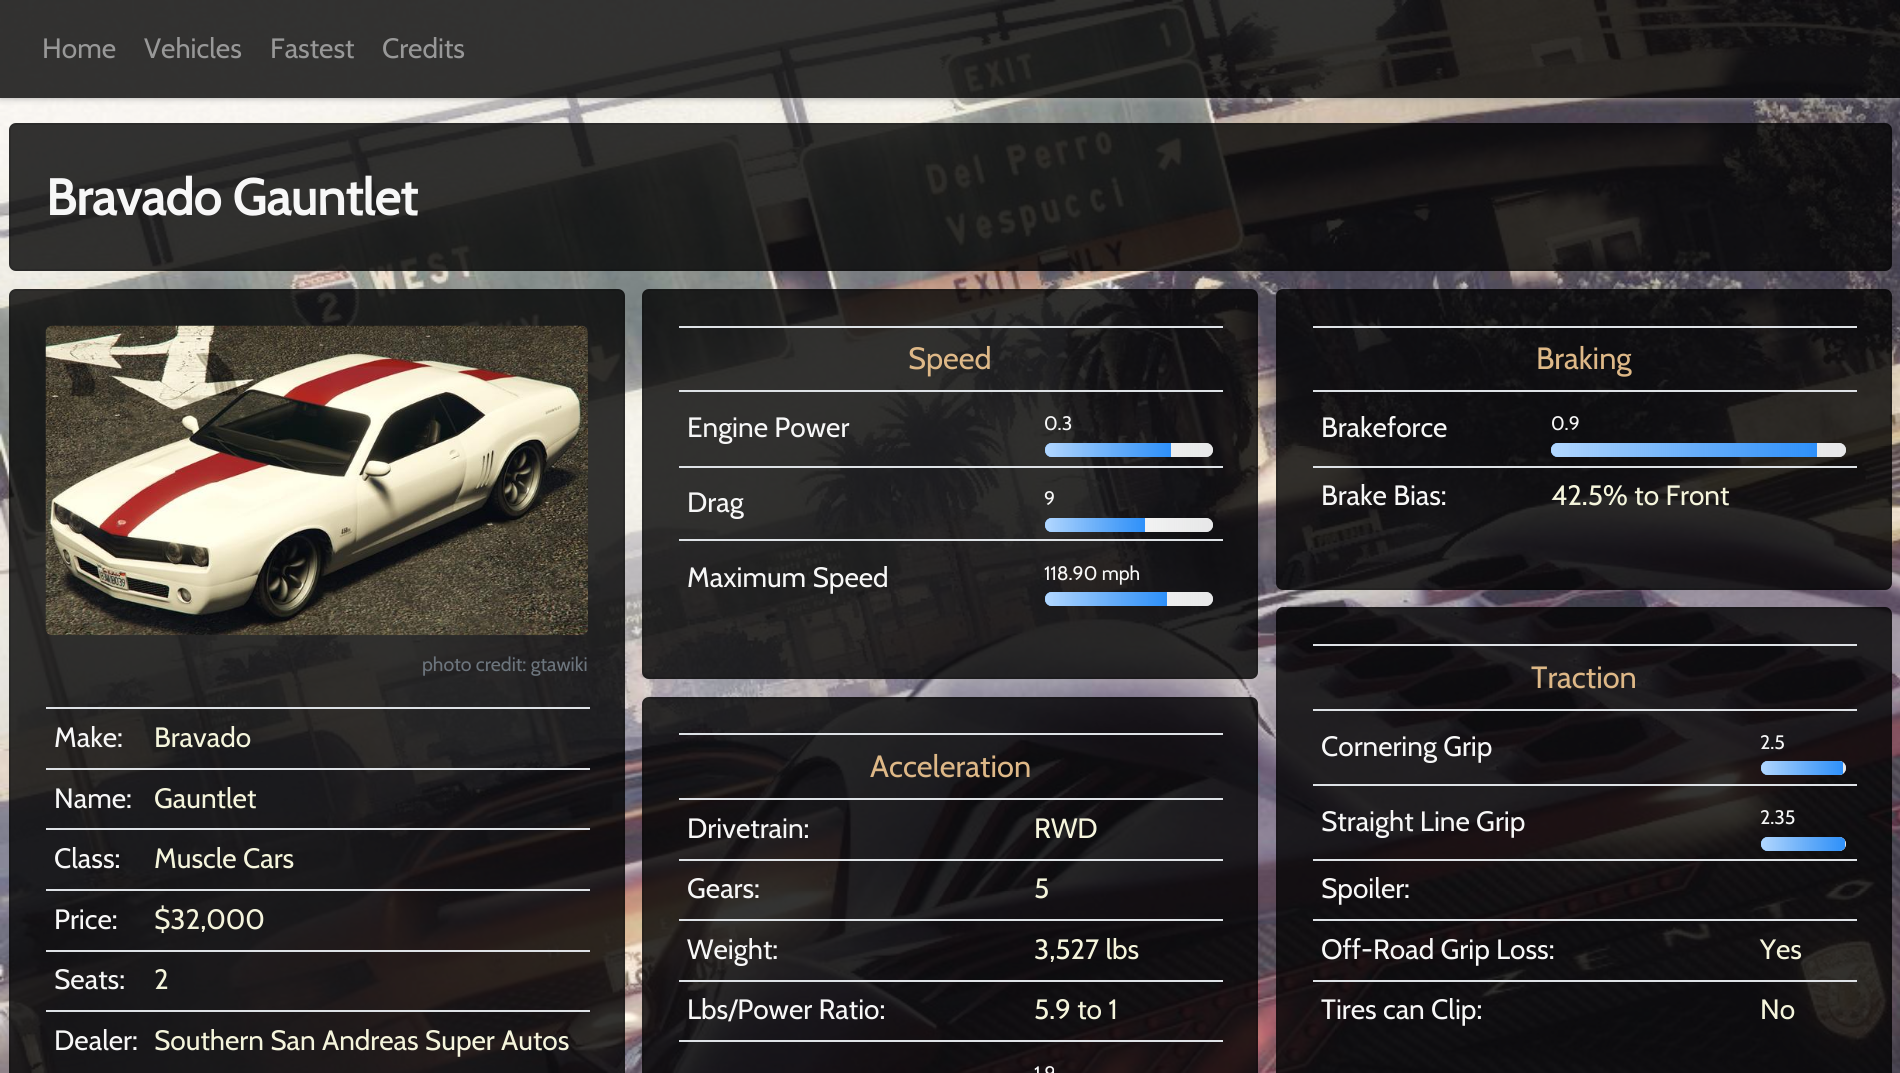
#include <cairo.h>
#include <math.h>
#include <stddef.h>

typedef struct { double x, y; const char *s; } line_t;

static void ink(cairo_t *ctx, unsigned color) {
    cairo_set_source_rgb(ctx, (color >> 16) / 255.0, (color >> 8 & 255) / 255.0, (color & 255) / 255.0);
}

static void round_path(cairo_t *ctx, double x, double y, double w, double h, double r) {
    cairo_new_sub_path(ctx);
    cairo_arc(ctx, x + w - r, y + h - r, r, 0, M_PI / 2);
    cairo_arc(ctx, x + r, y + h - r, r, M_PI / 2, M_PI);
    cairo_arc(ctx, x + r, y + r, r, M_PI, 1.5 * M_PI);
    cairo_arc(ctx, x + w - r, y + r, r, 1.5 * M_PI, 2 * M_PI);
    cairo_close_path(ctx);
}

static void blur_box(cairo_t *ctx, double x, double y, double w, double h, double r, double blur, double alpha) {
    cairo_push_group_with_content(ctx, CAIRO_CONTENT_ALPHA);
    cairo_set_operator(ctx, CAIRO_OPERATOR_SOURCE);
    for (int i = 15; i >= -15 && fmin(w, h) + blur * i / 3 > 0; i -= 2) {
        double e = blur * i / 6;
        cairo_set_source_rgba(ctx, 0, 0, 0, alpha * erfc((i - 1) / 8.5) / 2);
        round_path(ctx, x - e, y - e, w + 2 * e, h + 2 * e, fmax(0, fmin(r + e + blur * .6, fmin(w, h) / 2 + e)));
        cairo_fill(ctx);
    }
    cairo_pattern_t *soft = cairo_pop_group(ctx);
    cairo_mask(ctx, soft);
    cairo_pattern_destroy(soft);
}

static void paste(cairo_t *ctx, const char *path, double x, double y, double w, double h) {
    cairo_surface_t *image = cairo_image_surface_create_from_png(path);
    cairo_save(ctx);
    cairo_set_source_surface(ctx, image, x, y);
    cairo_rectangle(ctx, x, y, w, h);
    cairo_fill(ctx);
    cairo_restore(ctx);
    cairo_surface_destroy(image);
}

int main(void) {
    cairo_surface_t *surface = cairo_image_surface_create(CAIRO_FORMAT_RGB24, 1900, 1073);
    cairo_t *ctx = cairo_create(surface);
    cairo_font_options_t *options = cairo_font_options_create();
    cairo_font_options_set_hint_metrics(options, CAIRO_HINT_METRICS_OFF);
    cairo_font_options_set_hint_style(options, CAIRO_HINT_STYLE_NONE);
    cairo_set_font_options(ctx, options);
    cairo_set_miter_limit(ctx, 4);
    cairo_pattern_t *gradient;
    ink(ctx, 0xFFFFFF);
    cairo_paint(ctx);
    paste(ctx, "media/1.png", 0, 0, 1900, 1073);
    cairo_save(ctx);
    cairo_rectangle(ctx, 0, 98, 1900, 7);
    cairo_clip(ctx);
    ink(ctx, 0xA9A9A9);
    blur_box(ctx, 0, 0, 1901, 98, 0, 3.5, 1);
    cairo_restore(ctx);
    cairo_set_source_rgba(ctx, 0, 0, 0, 0.8);
    cairo_rectangle(ctx, 0, 0, 1900, 98);
    cairo_fill(ctx);
    cairo_select_font_face(ctx, "Cabin", CAIRO_FONT_SLANT_NORMAL, CAIRO_FONT_WEIGHT_NORMAL);
    cairo_set_font_size(ctx, 28);
    ink(ctx, 0x989898);
    {
        static const line_t items[] = {
            {42, 58, "Home"},
            {144, 58, "Vehicles"},
            {270, 58, "Fastest"},
            {382, 58, "Credits"},
        };
        for (size_t i = 0; i < sizeof items / sizeof *items; i++) {
            cairo_move_to(ctx, items[i].x, items[i].y);
            cairo_show_text(ctx, items[i].s);
        }
    }
    cairo_set_source_rgba(ctx, 0, 0, 0, 0.8);
    round_path(ctx, 9, 123, 1883, 148, 7);
    cairo_fill(ctx);
    round_path(ctx, 10, 124, 1881, 146, 6);
    cairo_set_source_rgba(ctx, 0, 0, 0, 0.12);
    cairo_stroke(ctx);
    cairo_select_font_face(ctx, "Cabin", CAIRO_FONT_SLANT_NORMAL, CAIRO_FONT_WEIGHT_BOLD);
    cairo_set_font_size(ctx, 50.5);
    ink(ctx, 0xF7F7F7);
    cairo_move_to(ctx, 46, 215);
    cairo_show_text(ctx, "Bravado Gauntlet");
    cairo_set_source_rgba(ctx, 0, 0, 0, 0.8);
    round_path(ctx, 9, 289, 616, 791, 7);
    cairo_fill(ctx);
    round_path(ctx, 10, 290, 614, 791, 6);
    cairo_set_source_rgba(ctx, 0, 0, 0, 0.12);
    cairo_stroke(ctx);
    paste(ctx, "media/2.png", 45, 325, 543, 311);
    cairo_select_font_face(ctx, "Cabin", CAIRO_FONT_SLANT_NORMAL, CAIRO_FONT_WEIGHT_NORMAL);
    cairo_set_font_size(ctx, 19.5);
    ink(ctx, 0x6C757D);
    cairo_move_to(ctx, 422, 671);
    cairo_show_text(ctx, "photo credit: gtawiki");
    cairo_set_font_size(ctx, 28);
    ink(ctx, 0xF7F7F7);
    cairo_move_to(ctx, 54, 747);
    cairo_show_text(ctx, "Make:");
    ink(ctx, 0xDEE2E6);
    cairo_rectangle(ctx, 46, 707, 544, 2);
    cairo_fill(ctx);
    ink(ctx, 0xF5F5DC);
    cairo_move_to(ctx, 154, 747);
    cairo_show_text(ctx, "Bravado");
    ink(ctx, 0xF7F7F7);
    cairo_move_to(ctx, 54, 808);
    cairo_show_text(ctx, "Name:");
    ink(ctx, 0xDEE2E6);
    cairo_rectangle(ctx, 46, 768, 544, 2);
    cairo_fill(ctx);
    ink(ctx, 0xF5F5DC);
    cairo_move_to(ctx, 154, 808);
    cairo_show_text(ctx, "Gauntlet");
    ink(ctx, 0xF7F7F7);
    cairo_move_to(ctx, 54, 868);
    cairo_show_text(ctx, "Class:");
    ink(ctx, 0xDEE2E6);
    cairo_rectangle(ctx, 46, 828, 544, 2);
    cairo_fill(ctx);
    ink(ctx, 0xF5F5DC);
    cairo_move_to(ctx, 154, 868);
    cairo_show_text(ctx, "Muscle Cars");
    ink(ctx, 0xF7F7F7);
    cairo_move_to(ctx, 54, 929);
    cairo_show_text(ctx, "Price:");
    ink(ctx, 0xDEE2E6);
    cairo_rectangle(ctx, 46, 889, 544, 2);
    cairo_fill(ctx);
    ink(ctx, 0xF5F5DC);
    cairo_move_to(ctx, 154, 929);
    cairo_show_text(ctx, "$32,000");
    ink(ctx, 0xF7F7F7);
    cairo_move_to(ctx, 54, 989);
    cairo_show_text(ctx, "Seats:");
    ink(ctx, 0xDEE2E6);
    cairo_rectangle(ctx, 46, 950, 544, 2);
    cairo_fill(ctx);
    ink(ctx, 0xF5F5DC);
    cairo_move_to(ctx, 154, 989);
    cairo_show_text(ctx, "2");
    ink(ctx, 0xF7F7F7);
    cairo_move_to(ctx, 54, 1050);
    cairo_show_text(ctx, "Dealer:");
    ink(ctx, 0xDEE2E6);
    cairo_rectangle(ctx, 46, 1010, 544, 2);
    cairo_fill(ctx);
    ink(ctx, 0xF5F5DC);
    cairo_move_to(ctx, 154, 1050);
    cairo_show_text(ctx, "Southern San Andreas Super Autos");
    cairo_set_source_rgba(ctx, 0, 0, 0, 0.8);
    round_path(ctx, 642, 289, 616, 390, 7);
    cairo_fill(ctx);
    round_path(ctx, 643, 290, 614, 388, 6);
    cairo_set_source_rgba(ctx, 0, 0, 0, 0.12);
    cairo_stroke(ctx);
    ink(ctx, 0xDEE2E6);
    cairo_rectangle(ctx, 679, 326, 544, 2);
    cairo_fill(ctx);
    cairo_set_font_size(ctx, 30.75);
    ink(ctx, 0xDEB887);
    cairo_move_to(ctx, 908, 369);
    cairo_show_text(ctx, "Speed");
    cairo_set_font_size(ctx, 28);
    ink(ctx, 0xF7F7F7);
    cairo_move_to(ctx, 687, 437);
    cairo_show_text(ctx, "Engine Power");
    ink(ctx, 0xDEE2E6);
    cairo_rectangle(ctx, 679, 390, 544, 2);
    cairo_fill(ctx);
    cairo_set_font_size(ctx, 19.5);
    ink(ctx, 0xF7F7F7);
    cairo_move_to(ctx, 1044, 430);
    cairo_show_text(ctx, "0.3");
    ink(ctx, 0xE9ECEF);
    round_path(ctx, 1045, 443, 168, 14, 7);
    cairo_fill(ctx);
    gradient = cairo_pattern_create_linear(1045, 443, 1213, 443);
    cairo_pattern_add_color_stop_rgba(gradient, 0, 0.902, 0.902, 0.902, 0.3);
    cairo_pattern_add_color_stop_rgba(gradient, 0.2, 1, 1, 1, 1);
    cairo_pattern_add_color_stop_rgba(gradient, 1, 0.902, 0.902, 0.902, 0.8);
    cairo_set_source(ctx, gradient);
    cairo_pattern_destroy(gradient);
    round_path(ctx, 1045, 443, 168, 14, 7);
    cairo_fill(ctx);
    ink(ctx, 0x007BFF);
    cairo_new_path(ctx);
    cairo_move_to(ctx, 1052, 443);
    cairo_line_to(ctx, 1171, 443);
    cairo_line_to(ctx, 1171, 457);
    cairo_line_to(ctx, 1052, 457);
    cairo_curve_to(ctx, 1048, 457, 1045, 454, 1045, 450);
    cairo_curve_to(ctx, 1045, 446, 1048, 443, 1052, 443);
    cairo_close_path(ctx);
    cairo_fill(ctx);
    gradient = cairo_pattern_create_linear(1045, 443, 1171, 443);
    cairo_pattern_add_color_stop_rgba(gradient, 0, 0.902, 0.902, 0.902, 0.5);
    cairo_pattern_add_color_stop_rgba(gradient, 0, 1, 1, 1, 0.7);
    cairo_pattern_add_color_stop_rgba(gradient, 1, 0.902, 0.902, 0.902, 0.2);
    cairo_set_source(ctx, gradient);
    cairo_pattern_destroy(gradient);
    cairo_new_path(ctx);
    cairo_move_to(ctx, 1052, 443);
    cairo_line_to(ctx, 1171, 443);
    cairo_line_to(ctx, 1171, 457);
    cairo_line_to(ctx, 1052, 457);
    cairo_curve_to(ctx, 1048, 457, 1045, 454, 1045, 450);
    cairo_curve_to(ctx, 1045, 446, 1048, 443, 1052, 443);
    cairo_close_path(ctx);
    cairo_fill(ctx);
    cairo_set_font_size(ctx, 28);
    ink(ctx, 0xF7F7F7);
    cairo_move_to(ctx, 687, 512);
    cairo_show_text(ctx, "Drag");
    ink(ctx, 0xDEE2E6);
    cairo_rectangle(ctx, 679, 466, 544, 2);
    cairo_fill(ctx);
    cairo_set_font_size(ctx, 19.5);
    ink(ctx, 0xF7F7F7);
    cairo_move_to(ctx, 1044, 505);
    cairo_show_text(ctx, "9");
    ink(ctx, 0xE9ECEF);
    round_path(ctx, 1045, 518, 168, 14, 7);
    cairo_fill(ctx);
    gradient = cairo_pattern_create_linear(1045, 518, 1213, 518);
    cairo_pattern_add_color_stop_rgba(gradient, 0, 0.902, 0.902, 0.902, 0.3);
    cairo_pattern_add_color_stop_rgba(gradient, 0.2, 1, 1, 1, 1);
    cairo_pattern_add_color_stop_rgba(gradient, 1, 0.902, 0.902, 0.902, 0.8);
    cairo_set_source(ctx, gradient);
    cairo_pattern_destroy(gradient);
    round_path(ctx, 1045, 518, 168, 14, 7);
    cairo_fill(ctx);
    ink(ctx, 0x007BFF);
    cairo_new_path(ctx);
    cairo_move_to(ctx, 1052, 518);
    cairo_line_to(ctx, 1145, 518);
    cairo_line_to(ctx, 1145, 532);
    cairo_line_to(ctx, 1052, 532);
    cairo_curve_to(ctx, 1048, 532, 1045, 529, 1045, 525);
    cairo_curve_to(ctx, 1045, 521, 1048, 518, 1052, 518);
    cairo_close_path(ctx);
    cairo_fill(ctx);
    gradient = cairo_pattern_create_linear(1045, 518, 1145, 518);
    cairo_pattern_add_color_stop_rgba(gradient, 0, 0.902, 0.902, 0.902, 0.5);
    cairo_pattern_add_color_stop_rgba(gradient, 0, 1, 1, 1, 0.7);
    cairo_pattern_add_color_stop_rgba(gradient, 1, 0.902, 0.902, 0.902, 0.2);
    cairo_set_source(ctx, gradient);
    cairo_pattern_destroy(gradient);
    cairo_new_path(ctx);
    cairo_move_to(ctx, 1052, 518);
    cairo_line_to(ctx, 1145, 518);
    cairo_line_to(ctx, 1145, 532);
    cairo_line_to(ctx, 1052, 532);
    cairo_curve_to(ctx, 1048, 532, 1045, 529, 1045, 525);
    cairo_curve_to(ctx, 1045, 521, 1048, 518, 1052, 518);
    cairo_close_path(ctx);
    cairo_fill(ctx);
    cairo_set_font_size(ctx, 28);
    ink(ctx, 0xF7F7F7);
    cairo_move_to(ctx, 687, 587);
    cairo_show_text(ctx, "Maximum Speed");
    ink(ctx, 0xDEE2E6);
    cairo_rectangle(ctx, 679, 539, 544, 2);
    cairo_fill(ctx);
    cairo_set_font_size(ctx, 19.5);
    ink(ctx, 0xF7F7F7);
    cairo_move_to(ctx, 1044, 580);
    cairo_show_text(ctx, "118.90 mph");
    ink(ctx, 0xE9ECEF);
    round_path(ctx, 1045, 592, 168, 14, 7);
    cairo_fill(ctx);
    gradient = cairo_pattern_create_linear(1045, 592, 1213, 592);
    cairo_pattern_add_color_stop_rgba(gradient, 0, 0.902, 0.902, 0.902, 0.3);
    cairo_pattern_add_color_stop_rgba(gradient, 0.2, 1, 1, 1, 1);
    cairo_pattern_add_color_stop_rgba(gradient, 1, 0.902, 0.902, 0.902, 0.8);
    cairo_set_source(ctx, gradient);
    cairo_pattern_destroy(gradient);
    round_path(ctx, 1045, 592, 168, 14, 7);
    cairo_fill(ctx);
    ink(ctx, 0x007BFF);
    cairo_new_path(ctx);
    cairo_move_to(ctx, 1052, 592);
    cairo_line_to(ctx, 1167, 592);
    cairo_line_to(ctx, 1167, 606);
    cairo_line_to(ctx, 1052, 606);
    cairo_curve_to(ctx, 1048, 606, 1045, 603, 1045, 599);
    cairo_curve_to(ctx, 1045, 595, 1048, 592, 1052, 592);
    cairo_close_path(ctx);
    cairo_fill(ctx);
    gradient = cairo_pattern_create_linear(1045, 592, 1167, 592);
    cairo_pattern_add_color_stop_rgba(gradient, 0, 0.902, 0.902, 0.902, 0.5);
    cairo_pattern_add_color_stop_rgba(gradient, 0, 1, 1, 1, 0.7);
    cairo_pattern_add_color_stop_rgba(gradient, 1, 0.902, 0.902, 0.902, 0.2);
    cairo_set_source(ctx, gradient);
    cairo_pattern_destroy(gradient);
    cairo_new_path(ctx);
    cairo_move_to(ctx, 1052, 592);
    cairo_line_to(ctx, 1167, 592);
    cairo_line_to(ctx, 1167, 606);
    cairo_line_to(ctx, 1052, 606);
    cairo_curve_to(ctx, 1048, 606, 1045, 603, 1045, 599);
    cairo_curve_to(ctx, 1045, 595, 1048, 592, 1052, 592);
    cairo_close_path(ctx);
    cairo_fill(ctx);
    cairo_set_source_rgba(ctx, 0, 0, 0, 0.8);
    round_path(ctx, 642, 697, 616, 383, 7);
    cairo_fill(ctx);
    round_path(ctx, 643, 698, 614, 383, 6);
    cairo_set_source_rgba(ctx, 0, 0, 0, 0.12);
    cairo_stroke(ctx);
    ink(ctx, 0xDEE2E6);
    cairo_rectangle(ctx, 679, 733, 544, 2);
    cairo_fill(ctx);
    cairo_set_font_size(ctx, 30.75);
    ink(ctx, 0xDEB887);
    cairo_move_to(ctx, 870, 777);
    cairo_show_text(ctx, "Acceleration");
    cairo_set_font_size(ctx, 28);
    ink(ctx, 0xF7F7F7);
    cairo_move_to(ctx, 687, 838);
    cairo_show_text(ctx, "Drivetrain:");
    ink(ctx, 0xDEE2E6);
    cairo_rectangle(ctx, 679, 798, 544, 2);
    cairo_fill(ctx);
    ink(ctx, 0xF5F5DC);
    cairo_move_to(ctx, 1034, 838);
    cairo_show_text(ctx, "RWD");
    ink(ctx, 0xF7F7F7);
    cairo_move_to(ctx, 687, 898);
    cairo_show_text(ctx, "Gears:");
    ink(ctx, 0xDEE2E6);
    cairo_rectangle(ctx, 679, 859, 544, 2);
    cairo_fill(ctx);
    ink(ctx, 0xF5F5DC);
    cairo_move_to(ctx, 1034, 898);
    cairo_show_text(ctx, "5");
    ink(ctx, 0xF7F7F7);
    cairo_move_to(ctx, 687, 959);
    cairo_show_text(ctx, "Weight:");
    ink(ctx, 0xDEE2E6);
    cairo_rectangle(ctx, 679, 919, 544, 2);
    cairo_fill(ctx);
    ink(ctx, 0xF5F5DC);
    cairo_move_to(ctx, 1034, 959);
    cairo_show_text(ctx, "3,527 lbs");
    ink(ctx, 0xF7F7F7);
    cairo_move_to(ctx, 687, 1019);
    cairo_show_text(ctx, "Lbs/Power Ratio:");
    ink(ctx, 0xDEE2E6);
    cairo_rectangle(ctx, 679, 980, 544, 2);
    cairo_fill(ctx);
    ink(ctx, 0xF5F5DC);
    cairo_move_to(ctx, 1034, 1019);
    cairo_show_text(ctx, "5.9 to 1");
    ink(ctx, 0xDEE2E6);
    cairo_rectangle(ctx, 679, 1040, 544, 2);
    cairo_fill(ctx);
    cairo_set_font_size(ctx, 19.5);
    ink(ctx, 0xF7F7F7);
    cairo_move_to(ctx, 1034, 1080);
    cairo_show_text(ctx, "1.9");
    cairo_set_source_rgba(ctx, 0, 0, 0, 0.8);
    round_path(ctx, 1276, 289, 616, 301, 7);
    cairo_fill(ctx);
    round_path(ctx, 1277, 290, 614, 299, 6);
    cairo_set_source_rgba(ctx, 0, 0, 0, 0.12);
    cairo_stroke(ctx);
    ink(ctx, 0xDEE2E6);
    cairo_rectangle(ctx, 1313, 326, 544, 2);
    cairo_fill(ctx);
    cairo_set_font_size(ctx, 30.75);
    ink(ctx, 0xDEB887);
    cairo_move_to(ctx, 1536, 369);
    cairo_show_text(ctx, "Braking");
    cairo_set_font_size(ctx, 28);
    ink(ctx, 0xF7F7F7);
    cairo_move_to(ctx, 1321, 437);
    cairo_show_text(ctx, "Brakeforce");
    ink(ctx, 0xDEE2E6);
    cairo_rectangle(ctx, 1313, 390, 544, 2);
    cairo_fill(ctx);
    cairo_set_font_size(ctx, 19.5);
    ink(ctx, 0xF7F7F7);
    cairo_move_to(ctx, 1551, 430);
    cairo_show_text(ctx, "0.9");
    ink(ctx, 0xE9ECEF);
    round_path(ctx, 1551, 443, 295, 14, 7);
    cairo_fill(ctx);
    gradient = cairo_pattern_create_linear(1551, 443, 1846, 443);
    cairo_pattern_add_color_stop_rgba(gradient, 0, 0.902, 0.902, 0.902, 0.3);
    cairo_pattern_add_color_stop_rgba(gradient, 0.2, 1, 1, 1, 1);
    cairo_pattern_add_color_stop_rgba(gradient, 1, 0.902, 0.902, 0.902, 0.8);
    cairo_set_source(ctx, gradient);
    cairo_pattern_destroy(gradient);
    round_path(ctx, 1551, 443, 295, 14, 7);
    cairo_fill(ctx);
    ink(ctx, 0x007BFF);
    cairo_new_path(ctx);
    cairo_move_to(ctx, 1558, 443);
    cairo_line_to(ctx, 1817, 443);
    cairo_line_to(ctx, 1817, 457);
    cairo_line_to(ctx, 1558, 457);
    cairo_curve_to(ctx, 1554, 457, 1551, 454, 1551, 450);
    cairo_curve_to(ctx, 1551, 446, 1554, 443, 1558, 443);
    cairo_close_path(ctx);
    cairo_fill(ctx);
    gradient = cairo_pattern_create_linear(1551, 443, 1817, 443);
    cairo_pattern_add_color_stop_rgba(gradient, 0, 0.902, 0.902, 0.902, 0.5);
    cairo_pattern_add_color_stop_rgba(gradient, 0, 1, 1, 1, 0.7);
    cairo_pattern_add_color_stop_rgba(gradient, 1, 0.902, 0.902, 0.902, 0.2);
    cairo_set_source(ctx, gradient);
    cairo_pattern_destroy(gradient);
    cairo_new_path(ctx);
    cairo_move_to(ctx, 1558, 443);
    cairo_line_to(ctx, 1817, 443);
    cairo_line_to(ctx, 1817, 457);
    cairo_line_to(ctx, 1558, 457);
    cairo_curve_to(ctx, 1554, 457, 1551, 454, 1551, 450);
    cairo_curve_to(ctx, 1551, 446, 1554, 443, 1558, 443);
    cairo_close_path(ctx);
    cairo_fill(ctx);
    cairo_set_font_size(ctx, 28);
    ink(ctx, 0xF7F7F7);
    cairo_move_to(ctx, 1321, 505);
    cairo_show_text(ctx, "Brake Bias:");
    ink(ctx, 0xDEE2E6);
    cairo_rectangle(ctx, 1313, 466, 544, 2);
    cairo_fill(ctx);
    ink(ctx, 0xF5F5DC);
    cairo_move_to(ctx, 1551, 505);
    cairo_show_text(ctx, "42.5% to Front");
    cairo_set_source_rgba(ctx, 0, 0, 0, 0.8);
    round_path(ctx, 1276, 607, 616, 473, 7);
    cairo_fill(ctx);
    round_path(ctx, 1277, 608, 614, 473, 6);
    cairo_set_source_rgba(ctx, 0, 0, 0, 0.12);
    cairo_stroke(ctx);
    ink(ctx, 0xDEE2E6);
    cairo_rectangle(ctx, 1313, 644, 544, 2);
    cairo_fill(ctx);
    cairo_set_font_size(ctx, 30.75);
    ink(ctx, 0xDEB887);
    cairo_move_to(ctx, 1531, 688);
    cairo_show_text(ctx, "Traction");
    cairo_set_font_size(ctx, 28);
    ink(ctx, 0xF7F7F7);
    cairo_move_to(ctx, 1321, 756);
    cairo_show_text(ctx, "Cornering Grip");
    ink(ctx, 0xDEE2E6);
    cairo_rectangle(ctx, 1313, 709, 544, 2);
    cairo_fill(ctx);
    cairo_set_font_size(ctx, 19.5);
    ink(ctx, 0xF7F7F7);
    cairo_move_to(ctx, 1760, 749);
    cairo_show_text(ctx, "2.5");
    ink(ctx, 0xE9ECEF);
    round_path(ctx, 1761, 761, 85, 14, 7);
    cairo_fill(ctx);
    gradient = cairo_pattern_create_linear(1761, 761, 1846, 761);
    cairo_pattern_add_color_stop_rgba(gradient, 0, 0.902, 0.902, 0.902, 0.3);
    cairo_pattern_add_color_stop_rgba(gradient, 0.2, 1, 1, 1, 1);
    cairo_pattern_add_color_stop_rgba(gradient, 1, 0.902, 0.902, 0.902, 0.8);
    cairo_set_source(ctx, gradient);
    cairo_pattern_destroy(gradient);
    round_path(ctx, 1761, 761, 85, 14, 7);
    cairo_fill(ctx);
    cairo_save(ctx);
    round_path(ctx, 1761, 761, 85, 14, 7);
    cairo_clip(ctx);
    ink(ctx, 0x007BFF);
    cairo_new_path(ctx);
    cairo_move_to(ctx, 1768, 761);
    cairo_line_to(ctx, 1843, 761);
    cairo_line_to(ctx, 1843, 775);
    cairo_line_to(ctx, 1768, 775);
    cairo_curve_to(ctx, 1764, 775, 1761, 772, 1761, 768);
    cairo_curve_to(ctx, 1761, 764, 1764, 761, 1768, 761);
    cairo_close_path(ctx);
    cairo_fill(ctx);
    gradient = cairo_pattern_create_linear(1761, 761, 1843, 761);
    cairo_pattern_add_color_stop_rgba(gradient, 0, 0.902, 0.902, 0.902, 0.5);
    cairo_pattern_add_color_stop_rgba(gradient, 0, 1, 1, 1, 0.7);
    cairo_pattern_add_color_stop_rgba(gradient, 1, 0.902, 0.902, 0.902, 0.2);
    cairo_set_source(ctx, gradient);
    cairo_pattern_destroy(gradient);
    cairo_new_path(ctx);
    cairo_move_to(ctx, 1768, 761);
    cairo_line_to(ctx, 1843, 761);
    cairo_line_to(ctx, 1843, 775);
    cairo_line_to(ctx, 1768, 775);
    cairo_curve_to(ctx, 1764, 775, 1761, 772, 1761, 768);
    cairo_curve_to(ctx, 1761, 764, 1764, 761, 1768, 761);
    cairo_close_path(ctx);
    cairo_fill(ctx);
    cairo_restore(ctx);
    cairo_set_font_size(ctx, 28);
    ink(ctx, 0xF7F7F7);
    cairo_move_to(ctx, 1321, 831);
    cairo_show_text(ctx, "Straight Line Grip");
    ink(ctx, 0xDEE2E6);
    cairo_rectangle(ctx, 1313, 784, 544, 2);
    cairo_fill(ctx);
    cairo_set_font_size(ctx, 19.5);
    ink(ctx, 0xF7F7F7);
    cairo_move_to(ctx, 1760, 824);
    cairo_show_text(ctx, "2.35");
    ink(ctx, 0xE9ECEF);
    round_path(ctx, 1761, 837, 85, 14, 7);
    cairo_fill(ctx);
    gradient = cairo_pattern_create_linear(1761, 837, 1846, 837);
    cairo_pattern_add_color_stop_rgba(gradient, 0, 0.902, 0.902, 0.902, 0.3);
    cairo_pattern_add_color_stop_rgba(gradient, 0.2, 1, 1, 1, 1);
    cairo_pattern_add_color_stop_rgba(gradient, 1, 0.902, 0.902, 0.902, 0.8);
    cairo_set_source(ctx, gradient);
    cairo_pattern_destroy(gradient);
    round_path(ctx, 1761, 837, 85, 14, 7);
    cairo_fill(ctx);
    cairo_save(ctx);
    round_path(ctx, 1761, 837, 85, 14, 7);
    cairo_clip(ctx);
    ink(ctx, 0x007BFF);
    cairo_new_path(ctx);
    cairo_move_to(ctx, 1768, 837);
    cairo_line_to(ctx, 1845, 837);
    cairo_line_to(ctx, 1845, 851);
    cairo_line_to(ctx, 1768, 851);
    cairo_curve_to(ctx, 1764, 851, 1761, 848, 1761, 844);
    cairo_curve_to(ctx, 1761, 840, 1764, 837, 1768, 837);
    cairo_close_path(ctx);
    cairo_fill(ctx);
    gradient = cairo_pattern_create_linear(1761, 837, 1845, 837);
    cairo_pattern_add_color_stop_rgba(gradient, 0, 0.902, 0.902, 0.902, 0.5);
    cairo_pattern_add_color_stop_rgba(gradient, 0, 1, 1, 1, 0.7);
    cairo_pattern_add_color_stop_rgba(gradient, 1, 0.902, 0.902, 0.902, 0.2);
    cairo_set_source(ctx, gradient);
    cairo_pattern_destroy(gradient);
    cairo_new_path(ctx);
    cairo_move_to(ctx, 1768, 837);
    cairo_line_to(ctx, 1845, 837);
    cairo_line_to(ctx, 1845, 851);
    cairo_line_to(ctx, 1768, 851);
    cairo_curve_to(ctx, 1764, 851, 1761, 848, 1761, 844);
    cairo_curve_to(ctx, 1761, 840, 1764, 837, 1768, 837);
    cairo_close_path(ctx);
    cairo_fill(ctx);
    cairo_restore(ctx);
    ink(ctx, 0xDEE2E6);
    cairo_rectangle(ctx, 1313, 859, 544, 2);
    cairo_fill(ctx);
    cairo_set_font_size(ctx, 28);
    ink(ctx, 0xF7F7F7);
    cairo_move_to(ctx, 1321, 898);
    cairo_show_text(ctx, "Spoiler:");
    cairo_move_to(ctx, 1321, 959);
    cairo_show_text(ctx, "Off-Road Grip Loss:");
    ink(ctx, 0xDEE2E6);
    cairo_rectangle(ctx, 1313, 919, 544, 2);
    cairo_fill(ctx);
    ink(ctx, 0xF5F5DC);
    cairo_move_to(ctx, 1760, 959);
    cairo_show_text(ctx, "Yes");
    ink(ctx, 0xF7F7F7);
    cairo_move_to(ctx, 1321, 1019);
    cairo_show_text(ctx, "Tires can Clip:");
    ink(ctx, 0xDEE2E6);
    cairo_rectangle(ctx, 1313, 980, 544, 2);
    cairo_fill(ctx);
    ink(ctx, 0xF5F5DC);
    cairo_move_to(ctx, 1760, 1019);
    cairo_show_text(ctx, "No");
    cairo_surface_write_to_png(surface, "image.png");
    cairo_font_options_destroy(options);
    cairo_destroy(ctx);
    cairo_surface_destroy(surface);
    return 0;
}
